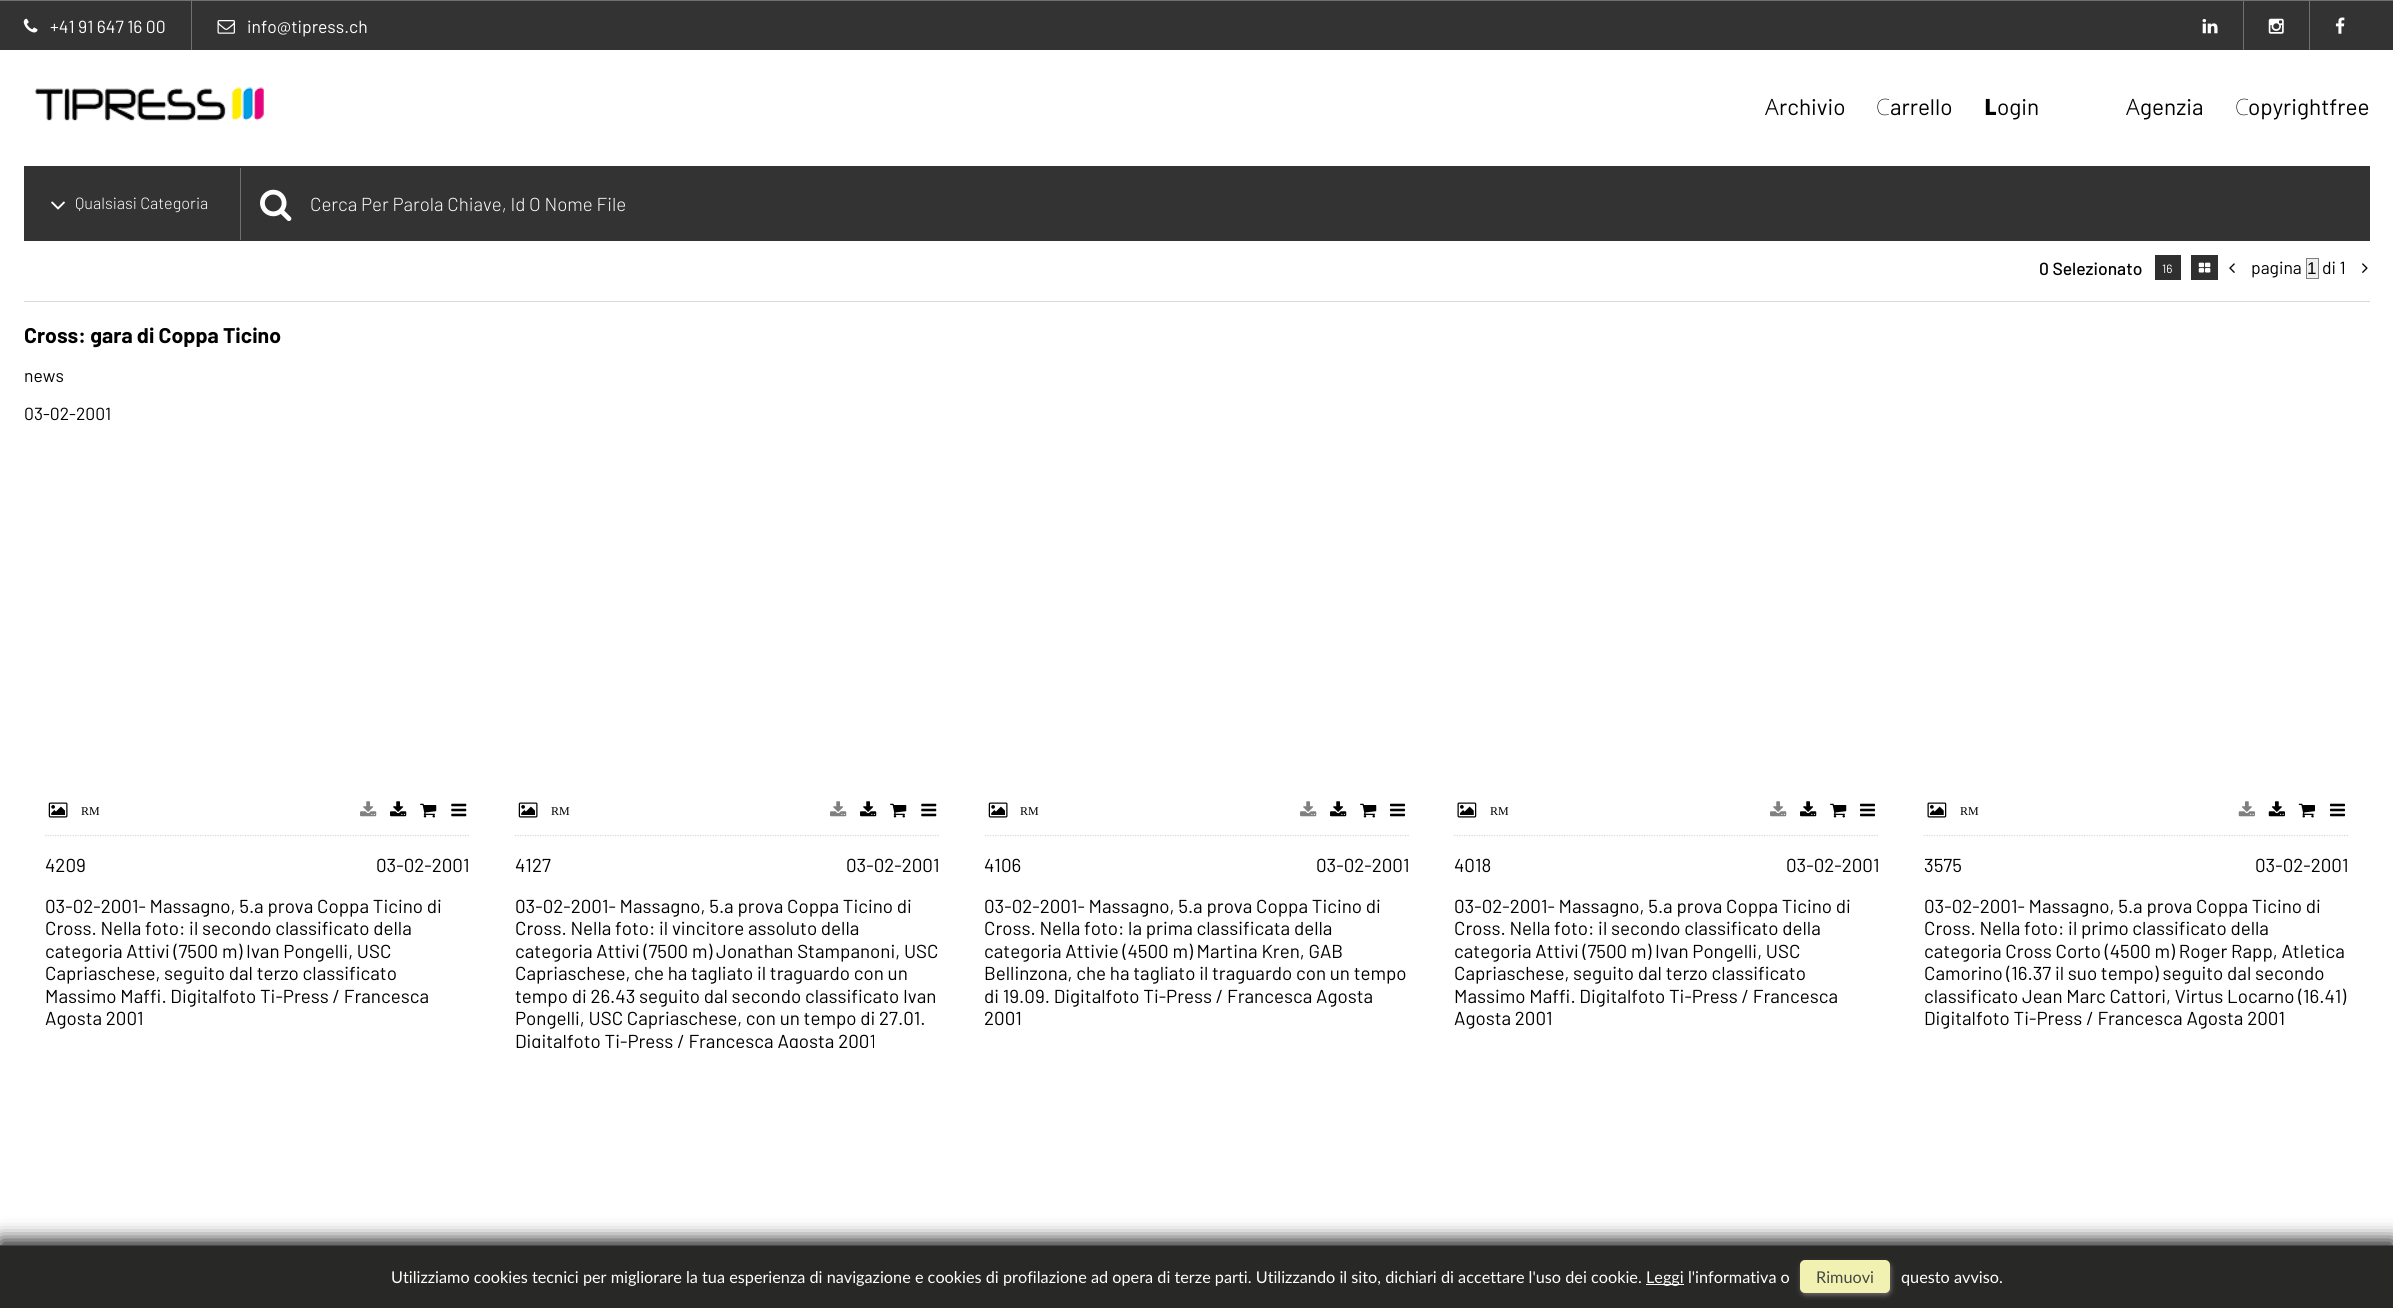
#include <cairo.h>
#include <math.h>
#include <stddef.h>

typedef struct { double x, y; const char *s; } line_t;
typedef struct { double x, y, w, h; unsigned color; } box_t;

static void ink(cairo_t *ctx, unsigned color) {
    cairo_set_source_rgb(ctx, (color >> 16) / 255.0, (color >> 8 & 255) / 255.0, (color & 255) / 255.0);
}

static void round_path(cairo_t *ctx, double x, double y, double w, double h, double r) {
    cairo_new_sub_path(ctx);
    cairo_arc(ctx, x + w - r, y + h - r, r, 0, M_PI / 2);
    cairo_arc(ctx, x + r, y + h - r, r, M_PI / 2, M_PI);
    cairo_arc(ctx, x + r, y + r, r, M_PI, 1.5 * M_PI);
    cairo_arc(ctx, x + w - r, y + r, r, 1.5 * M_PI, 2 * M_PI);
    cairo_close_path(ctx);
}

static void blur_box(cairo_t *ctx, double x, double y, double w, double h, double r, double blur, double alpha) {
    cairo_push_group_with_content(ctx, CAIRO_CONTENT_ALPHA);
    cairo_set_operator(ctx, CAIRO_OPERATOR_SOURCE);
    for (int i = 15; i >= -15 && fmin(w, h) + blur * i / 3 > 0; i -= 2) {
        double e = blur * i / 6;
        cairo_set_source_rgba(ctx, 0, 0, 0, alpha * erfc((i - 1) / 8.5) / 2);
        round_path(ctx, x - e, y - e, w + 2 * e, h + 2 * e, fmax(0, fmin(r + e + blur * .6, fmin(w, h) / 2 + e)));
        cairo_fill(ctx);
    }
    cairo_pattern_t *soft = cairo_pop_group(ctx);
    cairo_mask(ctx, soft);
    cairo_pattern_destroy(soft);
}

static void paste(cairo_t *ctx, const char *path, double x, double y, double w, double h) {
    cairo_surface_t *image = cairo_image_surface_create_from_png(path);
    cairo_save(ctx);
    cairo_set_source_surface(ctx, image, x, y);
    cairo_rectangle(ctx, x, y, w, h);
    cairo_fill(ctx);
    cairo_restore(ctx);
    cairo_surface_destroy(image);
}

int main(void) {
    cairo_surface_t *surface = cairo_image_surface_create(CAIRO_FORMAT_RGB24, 2393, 1308);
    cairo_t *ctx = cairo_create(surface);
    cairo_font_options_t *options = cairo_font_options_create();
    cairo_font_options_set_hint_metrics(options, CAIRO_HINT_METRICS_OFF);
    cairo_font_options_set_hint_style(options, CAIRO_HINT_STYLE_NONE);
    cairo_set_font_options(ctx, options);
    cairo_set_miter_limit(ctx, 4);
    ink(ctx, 0xFFFFFF);
    cairo_paint(ctx);
    {
        static const box_t items[] = {
            {0, 1, 2393, 49, 0x333333},
            {0, 0, 2393, 1, 0x707070},
            {191, 1, 1, 49, 0x707070},
        };
        for (size_t i = 0; i < sizeof items / sizeof *items; i++) {
            ink(ctx, items[i].color);
            cairo_rectangle(ctx, items[i].x, items[i].y, items[i].w, items[i].h);
            cairo_fill(ctx);
        }
    }
    paste(ctx, "media/1.png", 23, 18, 15, 15);
    cairo_select_font_face(ctx, "Barlow", CAIRO_FONT_SLANT_NORMAL, CAIRO_FONT_WEIGHT_NORMAL);
    cairo_set_font_size(ctx, 17.5);
    ink(ctx, 0xFFFFFF);
    cairo_move_to(ctx, 50, 33);
    cairo_show_text(ctx, "+41 91 647 16 00");
    paste(ctx, "media/2.png", 217, 20, 18, 14);
    cairo_move_to(ctx, 247, 33);
    cairo_show_text(ctx, "info@tipress.ch");
    paste(ctx, "media/3.png", 2202, 19, 16, 15);
    ink(ctx, 0x707070);
    cairo_rectangle(ctx, 2309, 1, 1, 49);
    cairo_fill(ctx);
    cairo_rectangle(ctx, 2243, 1, 1, 49);
    cairo_fill(ctx);
    paste(ctx, "media/4.png", 2268, 18, 16, 16);
    paste(ctx, "media/5.png", 2335, 17, 10, 17);
    paste(ctx, "media/6.png", 34, 87, 230, 34);
    cairo_select_font_face(ctx, "Noto Sans Light", CAIRO_FONT_SLANT_NORMAL, CAIRO_FONT_WEIGHT_NORMAL);
    cairo_set_font_size(ctx, 22.5);
    ink(ctx, 0x000000);
    cairo_move_to(ctx, 1765, 115);
    cairo_show_text(ctx, "A");
    cairo_select_font_face(ctx, "Barlow", CAIRO_FONT_SLANT_NORMAL, CAIRO_FONT_WEIGHT_NORMAL);
    cairo_move_to(ctx, 1779, 115);
    cairo_show_text(ctx, "rchivio");
    cairo_select_font_face(ctx, "Noto Sans Thin", CAIRO_FONT_SLANT_NORMAL, CAIRO_FONT_WEIGHT_NORMAL);
    cairo_move_to(ctx, 1876, 115);
    cairo_show_text(ctx, "C");
    cairo_select_font_face(ctx, "Barlow", CAIRO_FONT_SLANT_NORMAL, CAIRO_FONT_WEIGHT_NORMAL);
    cairo_move_to(ctx, 1890, 115);
    cairo_show_text(ctx, "arrello");
    cairo_select_font_face(ctx, "Noto Sans ExtraBold", CAIRO_FONT_SLANT_NORMAL, CAIRO_FONT_WEIGHT_NORMAL);
    cairo_move_to(ctx, 1984, 115);
    cairo_show_text(ctx, "L");
    cairo_select_font_face(ctx, "Barlow", CAIRO_FONT_SLANT_NORMAL, CAIRO_FONT_WEIGHT_NORMAL);
    cairo_move_to(ctx, 1997, 115);
    cairo_show_text(ctx, "ogin");
    cairo_select_font_face(ctx, "Noto Sans Light", CAIRO_FONT_SLANT_NORMAL, CAIRO_FONT_WEIGHT_NORMAL);
    cairo_move_to(ctx, 2126, 115);
    cairo_show_text(ctx, "A");
    cairo_select_font_face(ctx, "Barlow", CAIRO_FONT_SLANT_NORMAL, CAIRO_FONT_WEIGHT_NORMAL);
    cairo_move_to(ctx, 2140, 115);
    cairo_show_text(ctx, "genzia");
    cairo_select_font_face(ctx, "Noto Sans Thin", CAIRO_FONT_SLANT_NORMAL, CAIRO_FONT_WEIGHT_NORMAL);
    cairo_move_to(ctx, 2235, 115);
    cairo_show_text(ctx, "C");
    cairo_select_font_face(ctx, "Barlow", CAIRO_FONT_SLANT_NORMAL, CAIRO_FONT_WEIGHT_NORMAL);
    cairo_move_to(ctx, 2248, 115);
    cairo_show_text(ctx, "opyrightfree");
    ink(ctx, 0x333333);
    cairo_rectangle(ctx, 24, 166, 2346, 75);
    cairo_fill(ctx);
    paste(ctx, "media/7.png", 51, 201, 14, 9);
    ink(ctx, 0x707070);
    cairo_rectangle(ctx, 240, 168, 1, 72);
    cairo_fill(ctx);
    cairo_select_font_face(ctx, "Barlow Light", CAIRO_FONT_SLANT_NORMAL, CAIRO_FONT_WEIGHT_NORMAL);
    cairo_set_font_size(ctx, 16.25);
    ink(ctx, 0xFFFFFF);
    cairo_move_to(ctx, 75, 209);
    cairo_show_text(ctx, "Qualsiasi Categoria");
    paste(ctx, "media/8.png", 260, 189, 32, 32);
    cairo_set_font_size(ctx, 18.75);
    cairo_move_to(ctx, 310, 211);
    cairo_show_text(ctx, "Cerca Per Parola Chiave, Id O Nome File");
    cairo_select_font_face(ctx, "Barlow Medium", CAIRO_FONT_SLANT_NORMAL, CAIRO_FONT_WEIGHT_NORMAL);
    cairo_set_font_size(ctx, 17.5);
    ink(ctx, 0x000000);
    cairo_move_to(ctx, 2039, 275);
    cairo_show_text(ctx, "0 Selezionato");
    ink(ctx, 0x2F2F2F);
    cairo_rectangle(ctx, 2155, 255, 26, 25);
    cairo_fill(ctx);
    cairo_select_font_face(ctx, "Barlow", CAIRO_FONT_SLANT_NORMAL, CAIRO_FONT_WEIGHT_NORMAL);
    cairo_set_font_size(ctx, 12);
    ink(ctx, 0xFFFFFF);
    cairo_move_to(ctx, 2162, 273);
    cairo_show_text(ctx, "16");
    ink(ctx, 0x2F2F2F);
    cairo_rectangle(ctx, 2191, 255, 27, 25);
    cairo_fill(ctx);
    paste(ctx, "media/9.png", 2198, 262, 13, 11);
    paste(ctx, "media/10.png", 2229, 263, 6, 10);
    cairo_set_font_size(ctx, 17.5);
    ink(ctx, 0x000000);
    cairo_move_to(ctx, 2251, 274);
    cairo_show_text(ctx, "pagina");
    ink(ctx, 0xEFEFEF);
    cairo_rectangle(ctx, 2306.5, 258.5, 12, 20);
    cairo_fill_preserve(ctx);
    ink(ctx, 0x808080);
    cairo_set_line_width(ctx, 1);
    cairo_stroke(ctx);
    cairo_select_font_face(ctx, "Liberation Sans", CAIRO_FONT_SLANT_NORMAL, CAIRO_FONT_WEIGHT_NORMAL);
    cairo_set_font_size(ctx, 17);
    ink(ctx, 0x000000);
    cairo_move_to(ctx, 2307, 274);
    cairo_show_text(ctx, "1");
    cairo_select_font_face(ctx, "Barlow", CAIRO_FONT_SLANT_NORMAL, CAIRO_FONT_WEIGHT_NORMAL);
    cairo_set_font_size(ctx, 17.5);
    cairo_move_to(ctx, 2322, 274);
    cairo_show_text(ctx, "di 1");
    paste(ctx, "media/11.png", 2362, 263, 6, 10);
    ink(ctx, 0xD9D9D9);
    cairo_rectangle(ctx, 24, 301, 2346, 1);
    cairo_fill(ctx);
    cairo_select_font_face(ctx, "Barlow", CAIRO_FONT_SLANT_NORMAL, CAIRO_FONT_WEIGHT_BOLD);
    cairo_set_font_size(ctx, 21.25);
    ink(ctx, 0x000000);
    cairo_move_to(ctx, 24, 343);
    cairo_show_text(ctx, "Cross: gara di Coppa Ticino");
    cairo_select_font_face(ctx, "Barlow", CAIRO_FONT_SLANT_NORMAL, CAIRO_FONT_WEIGHT_NORMAL);
    cairo_set_font_size(ctx, 17.5);
    cairo_move_to(ctx, 24, 382);
    cairo_show_text(ctx, "news");
    cairo_move_to(ctx, 24, 420);
    cairo_show_text(ctx, "03-02-2001");
    cairo_new_path(ctx);
    cairo_move_to(ctx, 45, 835.5);
    cairo_line_to(ctx, 470, 835.5);
    ink(ctx, 0xD9D9D9);
    cairo_set_line_width(ctx, 1.2);
    cairo_set_dash(ctx, (double[]){1.25, 1.25}, 2, 0);
    cairo_stroke(ctx);
    paste(ctx, "media/12.png", 48, 802, 20, 16);
    cairo_select_font_face(ctx, "Liberation Serif", CAIRO_FONT_SLANT_NORMAL, CAIRO_FONT_WEIGHT_NORMAL);
    cairo_set_font_size(ctx, 12);
    ink(ctx, 0x000000);
    cairo_move_to(ctx, 81, 815);
    cairo_show_text(ctx, "RM");
    paste(ctx, "media/13.png", 360, 801, 17, 16);
    paste(ctx, "media/14.png", 390, 801, 17, 16);
    paste(ctx, "media/15.png", 420, 803, 17, 15);
    paste(ctx, "media/16.png", 451, 803, 16, 14);
    cairo_select_font_face(ctx, "Barlow", CAIRO_FONT_SLANT_NORMAL, CAIRO_FONT_WEIGHT_NORMAL);
    cairo_set_font_size(ctx, 18.75);
    {
        static const line_t items[] = {
            {45, 872, "4209"},
            {376, 872, "03-02-2001"},
            {45, 913, "03-02-2001- Massagno, 5.a prova Coppa Ticino di"},
            {45, 935, "Cross. Nella foto: il secondo classificato della"},
            {45, 958, "categoria Attivi (7500 m) Ivan Pongelli, USC"},
            {45, 980, "Capriaschese, seguito dal terzo classificato"},
            {45, 1003, "Massimo Maffi. Digitalfoto Ti-Press / Francesca"},
            {45, 1025, "Agosta 2001"},
        };
        for (size_t i = 0; i < sizeof items / sizeof *items; i++) {
            cairo_move_to(ctx, items[i].x, items[i].y);
            cairo_show_text(ctx, items[i].s);
        }
    }
    cairo_new_path(ctx);
    cairo_move_to(ctx, 515, 835.5);
    cairo_line_to(ctx, 940, 835.5);
    ink(ctx, 0xD9D9D9);
    cairo_stroke(ctx);
    paste(ctx, "media/12.png", 518, 802, 20, 16);
    cairo_select_font_face(ctx, "Liberation Serif", CAIRO_FONT_SLANT_NORMAL, CAIRO_FONT_WEIGHT_NORMAL);
    cairo_set_font_size(ctx, 12);
    ink(ctx, 0x000000);
    cairo_move_to(ctx, 551, 815);
    cairo_show_text(ctx, "RM");
    paste(ctx, "media/13.png", 830, 801, 17, 16);
    paste(ctx, "media/14.png", 860, 801, 17, 16);
    paste(ctx, "media/15.png", 890, 803, 17, 15);
    paste(ctx, "media/16.png", 921, 803, 16, 14);
    cairo_select_font_face(ctx, "Barlow", CAIRO_FONT_SLANT_NORMAL, CAIRO_FONT_WEIGHT_NORMAL);
    cairo_set_font_size(ctx, 18.75);
    {
        static const line_t items[] = {
            {515, 872, "4127"},
            {846, 872, "03-02-2001"},
            {515, 913, "03-02-2001- Massagno, 5.a prova Coppa Ticino di"},
            {515, 935, "Cross. Nella foto: il vincitore assoluto della"},
            {515, 958, "categoria Attivi (7500 m) Jonathan Stampanoni, USC"},
            {515, 980, "Capriaschese, che ha tagliato il traguardo con un"},
            {515, 1003, "tempo di 26.43 seguito dal secondo classificato Ivan"},
            {515, 1025, "Pongelli, USC Capriaschese, con un tempo di 27.01."},
        };
        for (size_t i = 0; i < sizeof items / sizeof *items; i++) {
            cairo_move_to(ctx, items[i].x, items[i].y);
            cairo_show_text(ctx, items[i].s);
        }
    }
    cairo_save(ctx);
    cairo_rectangle(ctx, 515, 894, 425, 154);
    cairo_clip(ctx);
    cairo_move_to(ctx, 515, 1048);
    cairo_show_text(ctx, "Digitalfoto Ti-Press / Francesca Agosta 2001");
    cairo_restore(ctx);
    cairo_new_path(ctx);
    cairo_move_to(ctx, 985, 835.5);
    cairo_line_to(ctx, 1409, 835.5);
    ink(ctx, 0xD9D9D9);
    cairo_stroke(ctx);
    paste(ctx, "media/12.png", 988, 802, 20, 16);
    cairo_select_font_face(ctx, "Liberation Serif", CAIRO_FONT_SLANT_NORMAL, CAIRO_FONT_WEIGHT_NORMAL);
    cairo_set_font_size(ctx, 12);
    ink(ctx, 0x000000);
    cairo_move_to(ctx, 1020, 815);
    cairo_show_text(ctx, "RM");
    paste(ctx, "media/13.png", 1300, 801, 17, 16);
    paste(ctx, "media/14.png", 1330, 801, 17, 16);
    paste(ctx, "media/15.png", 1360, 803, 17, 15);
    paste(ctx, "media/17.png", 1390, 803, 15, 14);
    cairo_select_font_face(ctx, "Barlow", CAIRO_FONT_SLANT_NORMAL, CAIRO_FONT_WEIGHT_NORMAL);
    cairo_set_font_size(ctx, 18.75);
    {
        static const line_t items[] = {
            {984, 872, "4106"},
            {1316, 872, "03-02-2001"},
            {984, 913, "03-02-2001- Massagno, 5.a prova Coppa Ticino di"},
            {984, 935, "Cross. Nella foto: la prima classificata della"},
            {984, 958, "categoria Attivie (4500 m) Martina Kren, GAB"},
            {984, 980, "Bellinzona, che ha tagliato il traguardo con un tempo"},
            {984, 1003, "di 19.09. Digitalfoto Ti-Press / Francesca Agosta"},
            {984, 1025, "2001"},
        };
        for (size_t i = 0; i < sizeof items / sizeof *items; i++) {
            cairo_move_to(ctx, items[i].x, items[i].y);
            cairo_show_text(ctx, items[i].s);
        }
    }
    cairo_new_path(ctx);
    cairo_move_to(ctx, 1454, 835.5);
    cairo_line_to(ctx, 1879, 835.5);
    ink(ctx, 0xD9D9D9);
    cairo_stroke(ctx);
    paste(ctx, "media/18.png", 1457, 802, 20, 16);
    cairo_select_font_face(ctx, "Liberation Serif", CAIRO_FONT_SLANT_NORMAL, CAIRO_FONT_WEIGHT_NORMAL);
    cairo_set_font_size(ctx, 12);
    ink(ctx, 0x000000);
    cairo_move_to(ctx, 1490, 815);
    cairo_show_text(ctx, "RM");
    paste(ctx, "media/13.png", 1770, 801, 17, 16);
    paste(ctx, "media/14.png", 1800, 801, 17, 16);
    paste(ctx, "media/15.png", 1830, 803, 17, 15);
    paste(ctx, "media/17.png", 1860, 803, 15, 14);
    cairo_select_font_face(ctx, "Barlow", CAIRO_FONT_SLANT_NORMAL, CAIRO_FONT_WEIGHT_NORMAL);
    cairo_set_font_size(ctx, 18.75);
    {
        static const line_t items[] = {
            {1454, 872, "4018"},
            {1786, 872, "03-02-2001"},
            {1454, 913, "03-02-2001- Massagno, 5.a prova Coppa Ticino di"},
            {1454, 935, "Cross. Nella foto: il secondo classificato della"},
            {1454, 958, "categoria Attivi (7500 m) Ivan Pongelli, USC"},
            {1454, 980, "Capriaschese, seguito dal terzo classificato"},
            {1454, 1003, "Massimo Maffi. Digitalfoto Ti-Press / Francesca"},
            {1454, 1025, "Agosta 2001"},
        };
        for (size_t i = 0; i < sizeof items / sizeof *items; i++) {
            cairo_move_to(ctx, items[i].x, items[i].y);
            cairo_show_text(ctx, items[i].s);
        }
    }
    cairo_new_path(ctx);
    cairo_move_to(ctx, 1924, 835.5);
    cairo_line_to(ctx, 2349, 835.5);
    ink(ctx, 0xD9D9D9);
    cairo_stroke(ctx);
    paste(ctx, "media/18.png", 1927, 802, 20, 16);
    cairo_select_font_face(ctx, "Liberation Serif", CAIRO_FONT_SLANT_NORMAL, CAIRO_FONT_WEIGHT_NORMAL);
    cairo_set_font_size(ctx, 12);
    ink(ctx, 0x000000);
    cairo_move_to(ctx, 1960, 815);
    cairo_show_text(ctx, "RM");
    paste(ctx, "media/19.png", 2238, 801, 17, 16);
    paste(ctx, "media/20.png", 2268, 801, 17, 16);
    paste(ctx, "media/21.png", 2298, 803, 17, 15);
    paste(ctx, "media/17.png", 2330, 803, 15, 14);
    cairo_select_font_face(ctx, "Barlow", CAIRO_FONT_SLANT_NORMAL, CAIRO_FONT_WEIGHT_NORMAL);
    cairo_set_font_size(ctx, 18.75);
    {
        static const line_t items[] = {
            {1924, 872, "3575"},
            {2255, 872, "03-02-2001"},
            {1924, 913, "03-02-2001- Massagno, 5.a prova Coppa Ticino di"},
            {1924, 935, "Cross. Nella foto: il primo classificato della"},
            {1924, 958, "categoria Cross Corto (4500 m) Roger Rapp, Atletica"},
            {1924, 980, "Camorino (16.37 il suo tempo) seguito dal secondo"},
            {1924, 1003, "classificato Jean Marc Cattori, Virtus Locarno (16.41)"},
            {1924, 1025, "Digitalfoto Ti-Press / Francesca Agosta 2001"},
        };
        for (size_t i = 0; i < sizeof items / sizeof *items; i++) {
            cairo_move_to(ctx, items[i].x, items[i].y);
            cairo_show_text(ctx, items[i].s);
        }
    }
    ink(ctx, 0x1A1A1A);
    blur_box(ctx, 0, 1240, 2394, 64, 0, 9.5, 1);
    ink(ctx, 0x282827);
    cairo_rectangle(ctx, 0, 1246, 2393, 62);
    cairo_fill(ctx);
    ink(ctx, 0x474747);
    cairo_rectangle(ctx, 0, 1245, 2393, 1);
    cairo_fill(ctx);
    cairo_select_font_face(ctx, "Lato", CAIRO_FONT_SLANT_NORMAL, CAIRO_FONT_WEIGHT_NORMAL);
    cairo_set_font_size(ctx, 16.25);
    ink(ctx, 0xFFFFFF);
    cairo_move_to(ctx, 391, 1283);
    cairo_show_text(ctx, "Utilizziamo cookies tecnici per migliorare la tua esperienza di navigazione e cookies di profilazione ad opera di terze parti. Utilizzando il sito, dichiari di accettare l'uso dei cookie.");
    cairo_rectangle(ctx, 1646, 1284, 38, 1);
    cairo_fill(ctx);
    cairo_move_to(ctx, 1646, 1283);
    cairo_show_text(ctx, "Leggi l'informativa o");
    ink(ctx, 0x766D6D);
    blur_box(ctx, 1801, 1263, 90, 32, 5, 2.5, 1);
    ink(ctx, 0xF1F2B1);
    round_path(ctx, 1800, 1260, 90, 33, 5);
    cairo_fill(ctx);
    ink(ctx, 0x474746);
    cairo_move_to(ctx, 1816, 1283);
    cairo_show_text(ctx, "Rimuovi");
    ink(ctx, 0xFFFFFF);
    cairo_move_to(ctx, 1901, 1283);
    cairo_show_text(ctx, "questo avviso.");
    cairo_surface_write_to_png(surface, "image.png");
    cairo_font_options_destroy(options);
    cairo_destroy(ctx);
    cairo_surface_destroy(surface);
    return 0;
}
